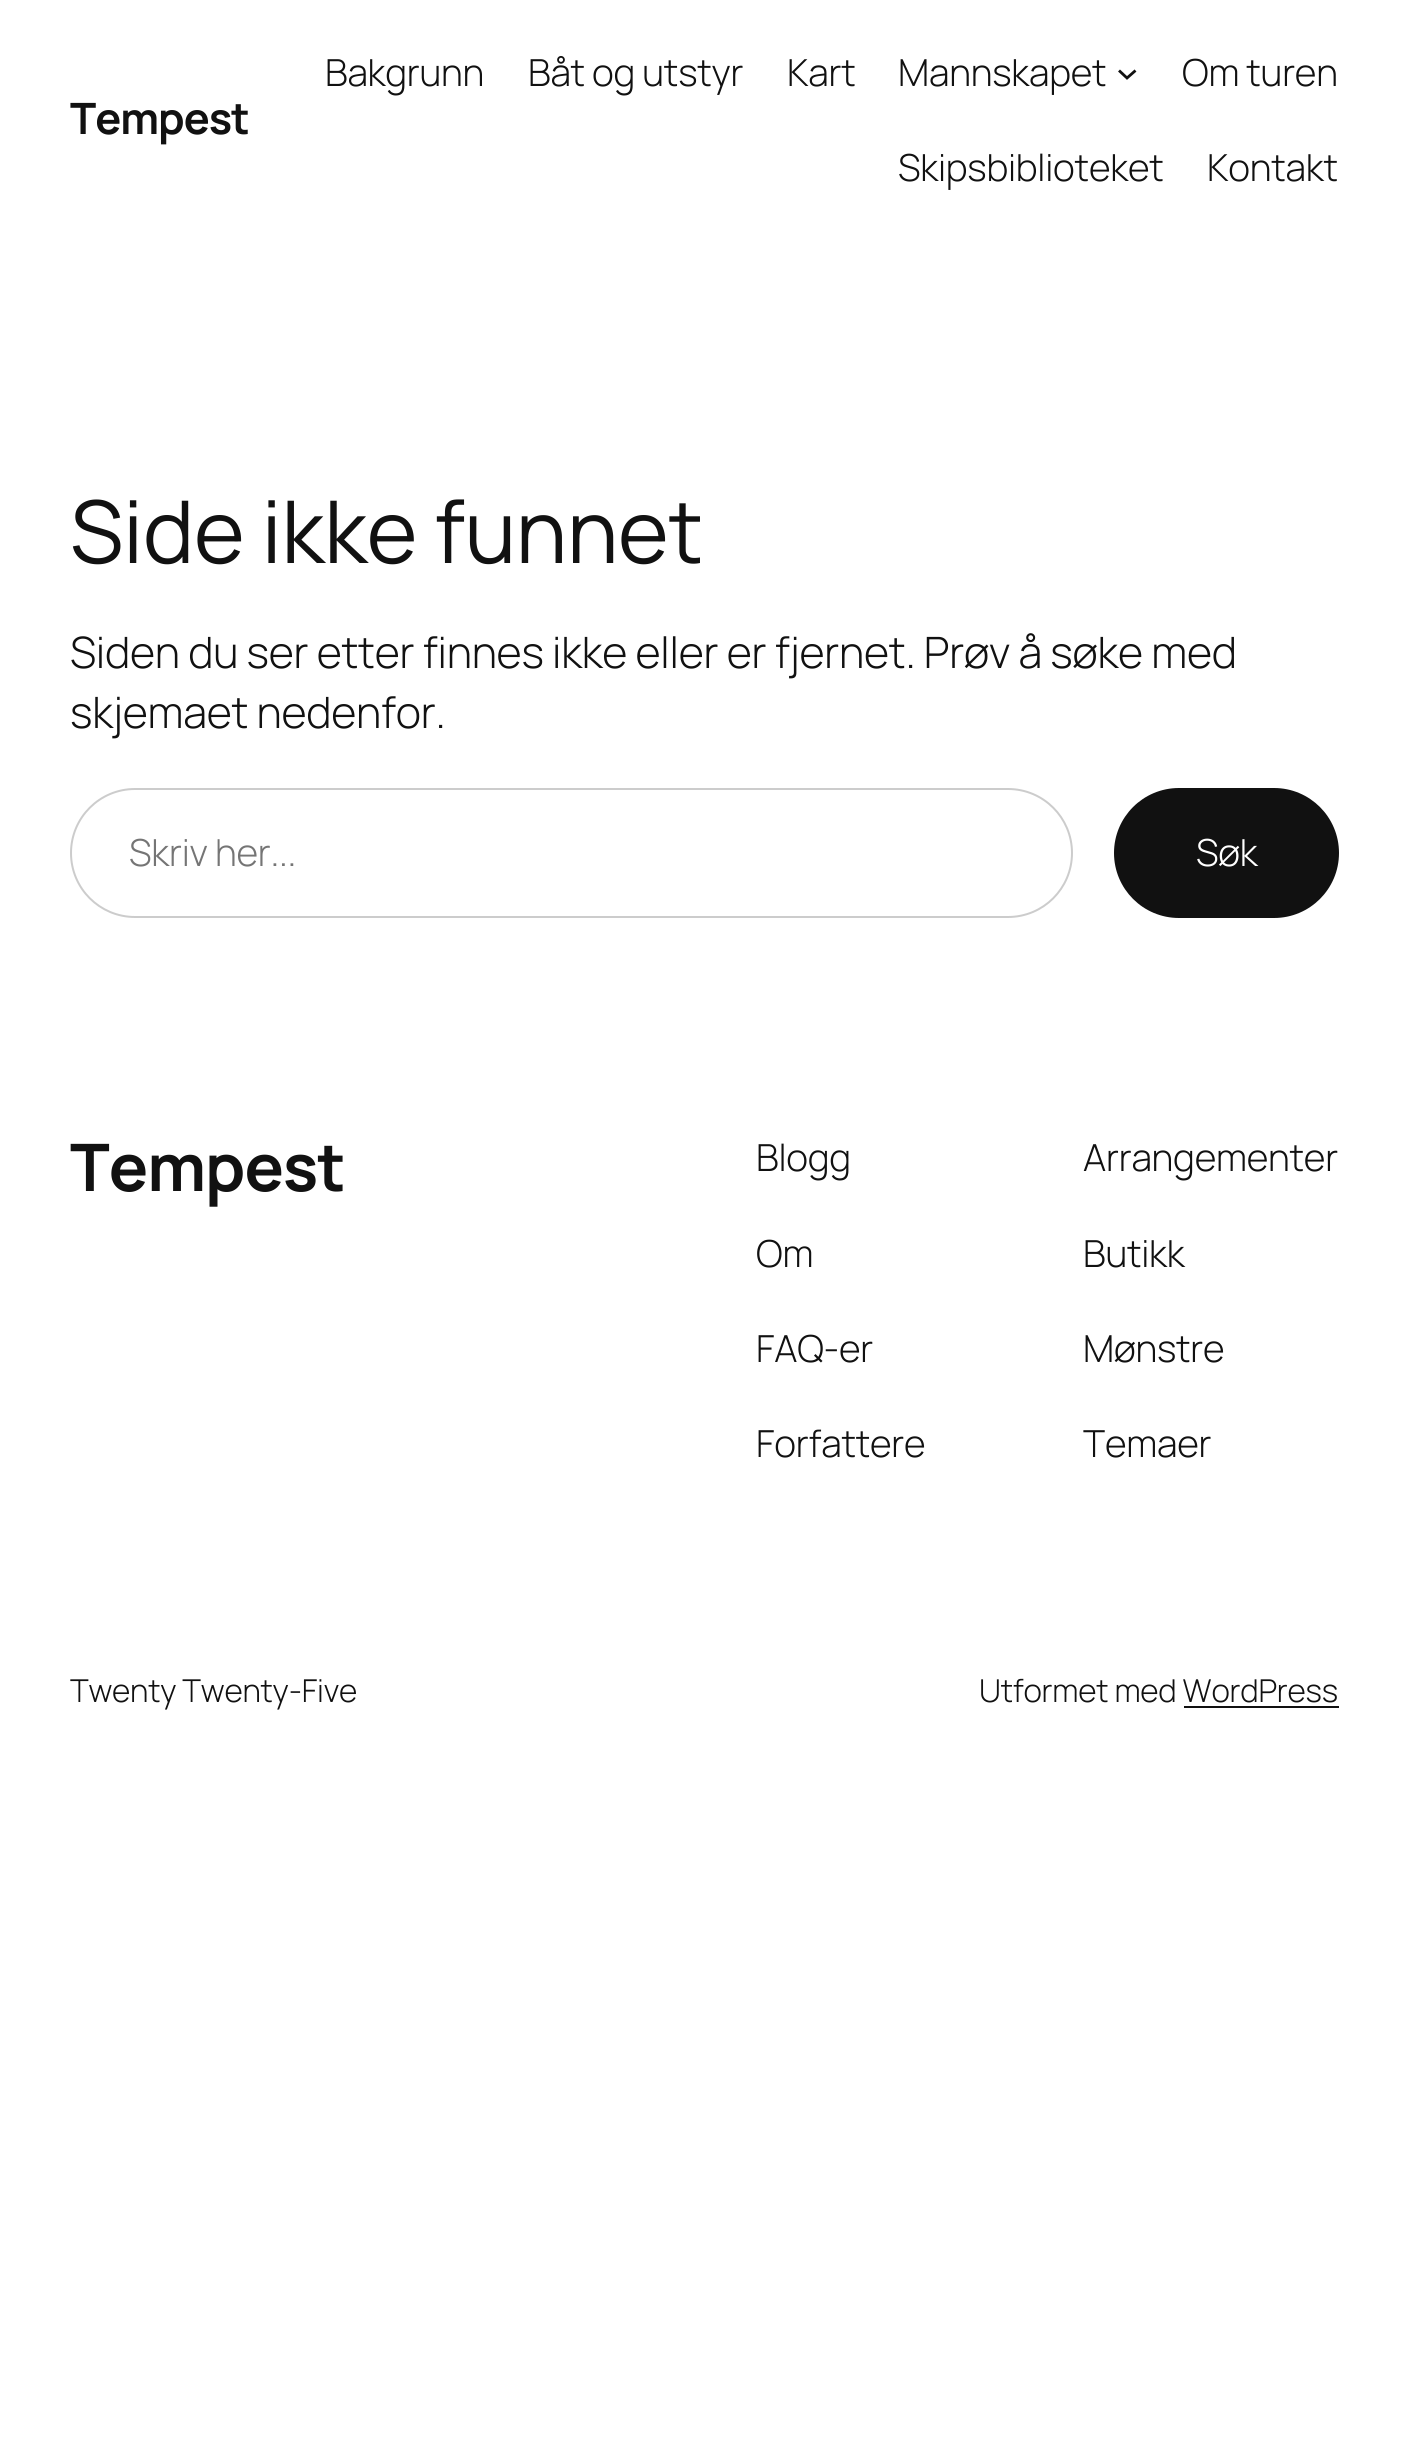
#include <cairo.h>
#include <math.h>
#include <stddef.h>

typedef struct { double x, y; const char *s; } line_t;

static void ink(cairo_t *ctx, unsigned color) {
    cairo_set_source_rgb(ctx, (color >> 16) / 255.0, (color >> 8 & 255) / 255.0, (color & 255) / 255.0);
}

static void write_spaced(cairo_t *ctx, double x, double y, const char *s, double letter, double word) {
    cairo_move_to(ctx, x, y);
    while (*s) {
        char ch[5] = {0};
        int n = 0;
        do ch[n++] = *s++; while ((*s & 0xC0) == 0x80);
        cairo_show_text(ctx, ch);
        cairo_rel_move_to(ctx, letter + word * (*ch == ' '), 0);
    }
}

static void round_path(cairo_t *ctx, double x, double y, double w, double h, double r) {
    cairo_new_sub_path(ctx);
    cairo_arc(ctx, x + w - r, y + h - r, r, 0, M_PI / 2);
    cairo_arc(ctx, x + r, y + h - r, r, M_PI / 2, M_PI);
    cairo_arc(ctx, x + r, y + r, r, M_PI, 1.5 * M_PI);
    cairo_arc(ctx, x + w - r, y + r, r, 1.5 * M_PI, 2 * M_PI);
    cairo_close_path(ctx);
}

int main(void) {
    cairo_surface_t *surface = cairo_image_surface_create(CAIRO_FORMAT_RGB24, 1408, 2463);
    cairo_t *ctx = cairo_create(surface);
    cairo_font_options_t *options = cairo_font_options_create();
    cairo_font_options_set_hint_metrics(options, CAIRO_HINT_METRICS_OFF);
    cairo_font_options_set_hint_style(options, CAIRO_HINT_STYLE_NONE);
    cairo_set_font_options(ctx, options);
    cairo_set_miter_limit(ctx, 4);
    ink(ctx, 0xFFFFFF);
    cairo_paint(ctx);
    cairo_select_font_face(ctx, "Manrope", CAIRO_FONT_SLANT_NORMAL, CAIRO_FONT_WEIGHT_BOLD);
    cairo_set_font_size(ctx, 43.2);
    ink(ctx, 0x111111);
    write_spaced(ctx, 70, 134, "Tempest", -1, 0);
    cairo_select_font_face(ctx, "Manrope Light", CAIRO_FONT_SLANT_NORMAL, CAIRO_FONT_WEIGHT_NORMAL);
    cairo_set_font_size(ctx, 37.25);
    {
        static const line_t items[] = {
            {325, 86, "Bakgrunn"},
            {528, 86, "Båt og utstyr"},
            {787, 86, "Kart"},
            {898, 86, "Mannskapet"},
        };
        for (size_t i = 0; i < sizeof items / sizeof *items; i++) {
            write_spaced(ctx, items[i].x, items[i].y, items[i].s, -0.23, 0);
        }
    }
    cairo_new_path(ctx);
    cairo_move_to(ctx, 1119, 70.5);
    cairo_line_to(ctx, 1127, 78);
    cairo_line_to(ctx, 1135.5, 70.5);
    cairo_set_line_width(ctx, 2.8);
    cairo_stroke(ctx);
    {
        static const line_t items[] = {
            {1182, 86, "Om turen"},
            {898, 181, "Skipsbiblioteket"},
            {1207, 181, "Kontakt"},
        };
        for (size_t i = 0; i < sizeof items / sizeof *items; i++) {
            write_spaced(ctx, items[i].x, items[i].y, items[i].s, -0.23, 0);
        }
    }
    cairo_select_font_face(ctx, "Manrope", CAIRO_FONT_SLANT_NORMAL, CAIRO_FONT_WEIGHT_NORMAL);
    cairo_set_font_size(ctx, 86.5);
    write_spaced(ctx, 70, 563, "Side ikke funnet", -0.23, 0);
    cairo_select_font_face(ctx, "Manrope Light", CAIRO_FONT_SLANT_NORMAL, CAIRO_FONT_WEIGHT_NORMAL);
    cairo_set_font_size(ctx, 43.2);
    write_spaced(ctx, 70, 668, "Siden du ser etter finnes ikke eller er fjernet. Prøv å søke med", -0.23, 0);
    write_spaced(ctx, 70, 728, "skjemaet nedenfor.", -0.23, 0);
    round_path(ctx, 71, 789, 1001, 128, 64);
    ink(ctx, 0xCCCCCC);
    cairo_set_line_width(ctx, 2);
    cairo_stroke(ctx);
    cairo_set_font_size(ctx, 37.25);
    ink(ctx, 0x757575);
    write_spaced(ctx, 129, 866, "Skriv her...", -0.23, 0);
    ink(ctx, 0x111111);
    round_path(ctx, 1114, 788, 225, 130, 65);
    cairo_fill(ctx);
    ink(ctx, 0xFFFFFF);
    write_spaced(ctx, 1196, 866, "Søk", -0.23, 0);
    cairo_select_font_face(ctx, "Manrope", CAIRO_FONT_SLANT_NORMAL, CAIRO_FONT_WEIGHT_BOLD);
    cairo_set_font_size(ctx, 65.5);
    ink(ctx, 0x111111);
    write_spaced(ctx, 70, 1191, "Tempest", -1, 0);
    cairo_select_font_face(ctx, "Manrope Light", CAIRO_FONT_SLANT_NORMAL, CAIRO_FONT_WEIGHT_NORMAL);
    cairo_set_font_size(ctx, 37.25);
    {
        static const line_t items[] = {
            {756, 1171, "Blogg"},
            {756, 1267, "Om"},
            {756, 1362, "FAQ-er"},
            {756, 1457, "Forfattere"},
            {1083, 1171, "Arrangementer"},
            {1083, 1267, "Butikk"},
            {1083, 1362, "Mønstre"},
            {1083, 1457, "Temaer"},
        };
        for (size_t i = 0; i < sizeof items / sizeof *items; i++) {
            write_spaced(ctx, items[i].x, items[i].y, items[i].s, -0.23, 0);
        }
    }
    cairo_set_font_size(ctx, 31.5);
    write_spaced(ctx, 70, 1702, "Twenty Twenty-Five", -0.23, 0);
    write_spaced(ctx, 979, 1702, "Utformet med WordPress", -0.23, 0);
    cairo_rectangle(ctx, 1184, 1706, 155, 2);
    cairo_fill(ctx);
    cairo_surface_write_to_png(surface, "image.png");
    cairo_font_options_destroy(options);
    cairo_destroy(ctx);
    cairo_surface_destroy(surface);
    return 0;
}
